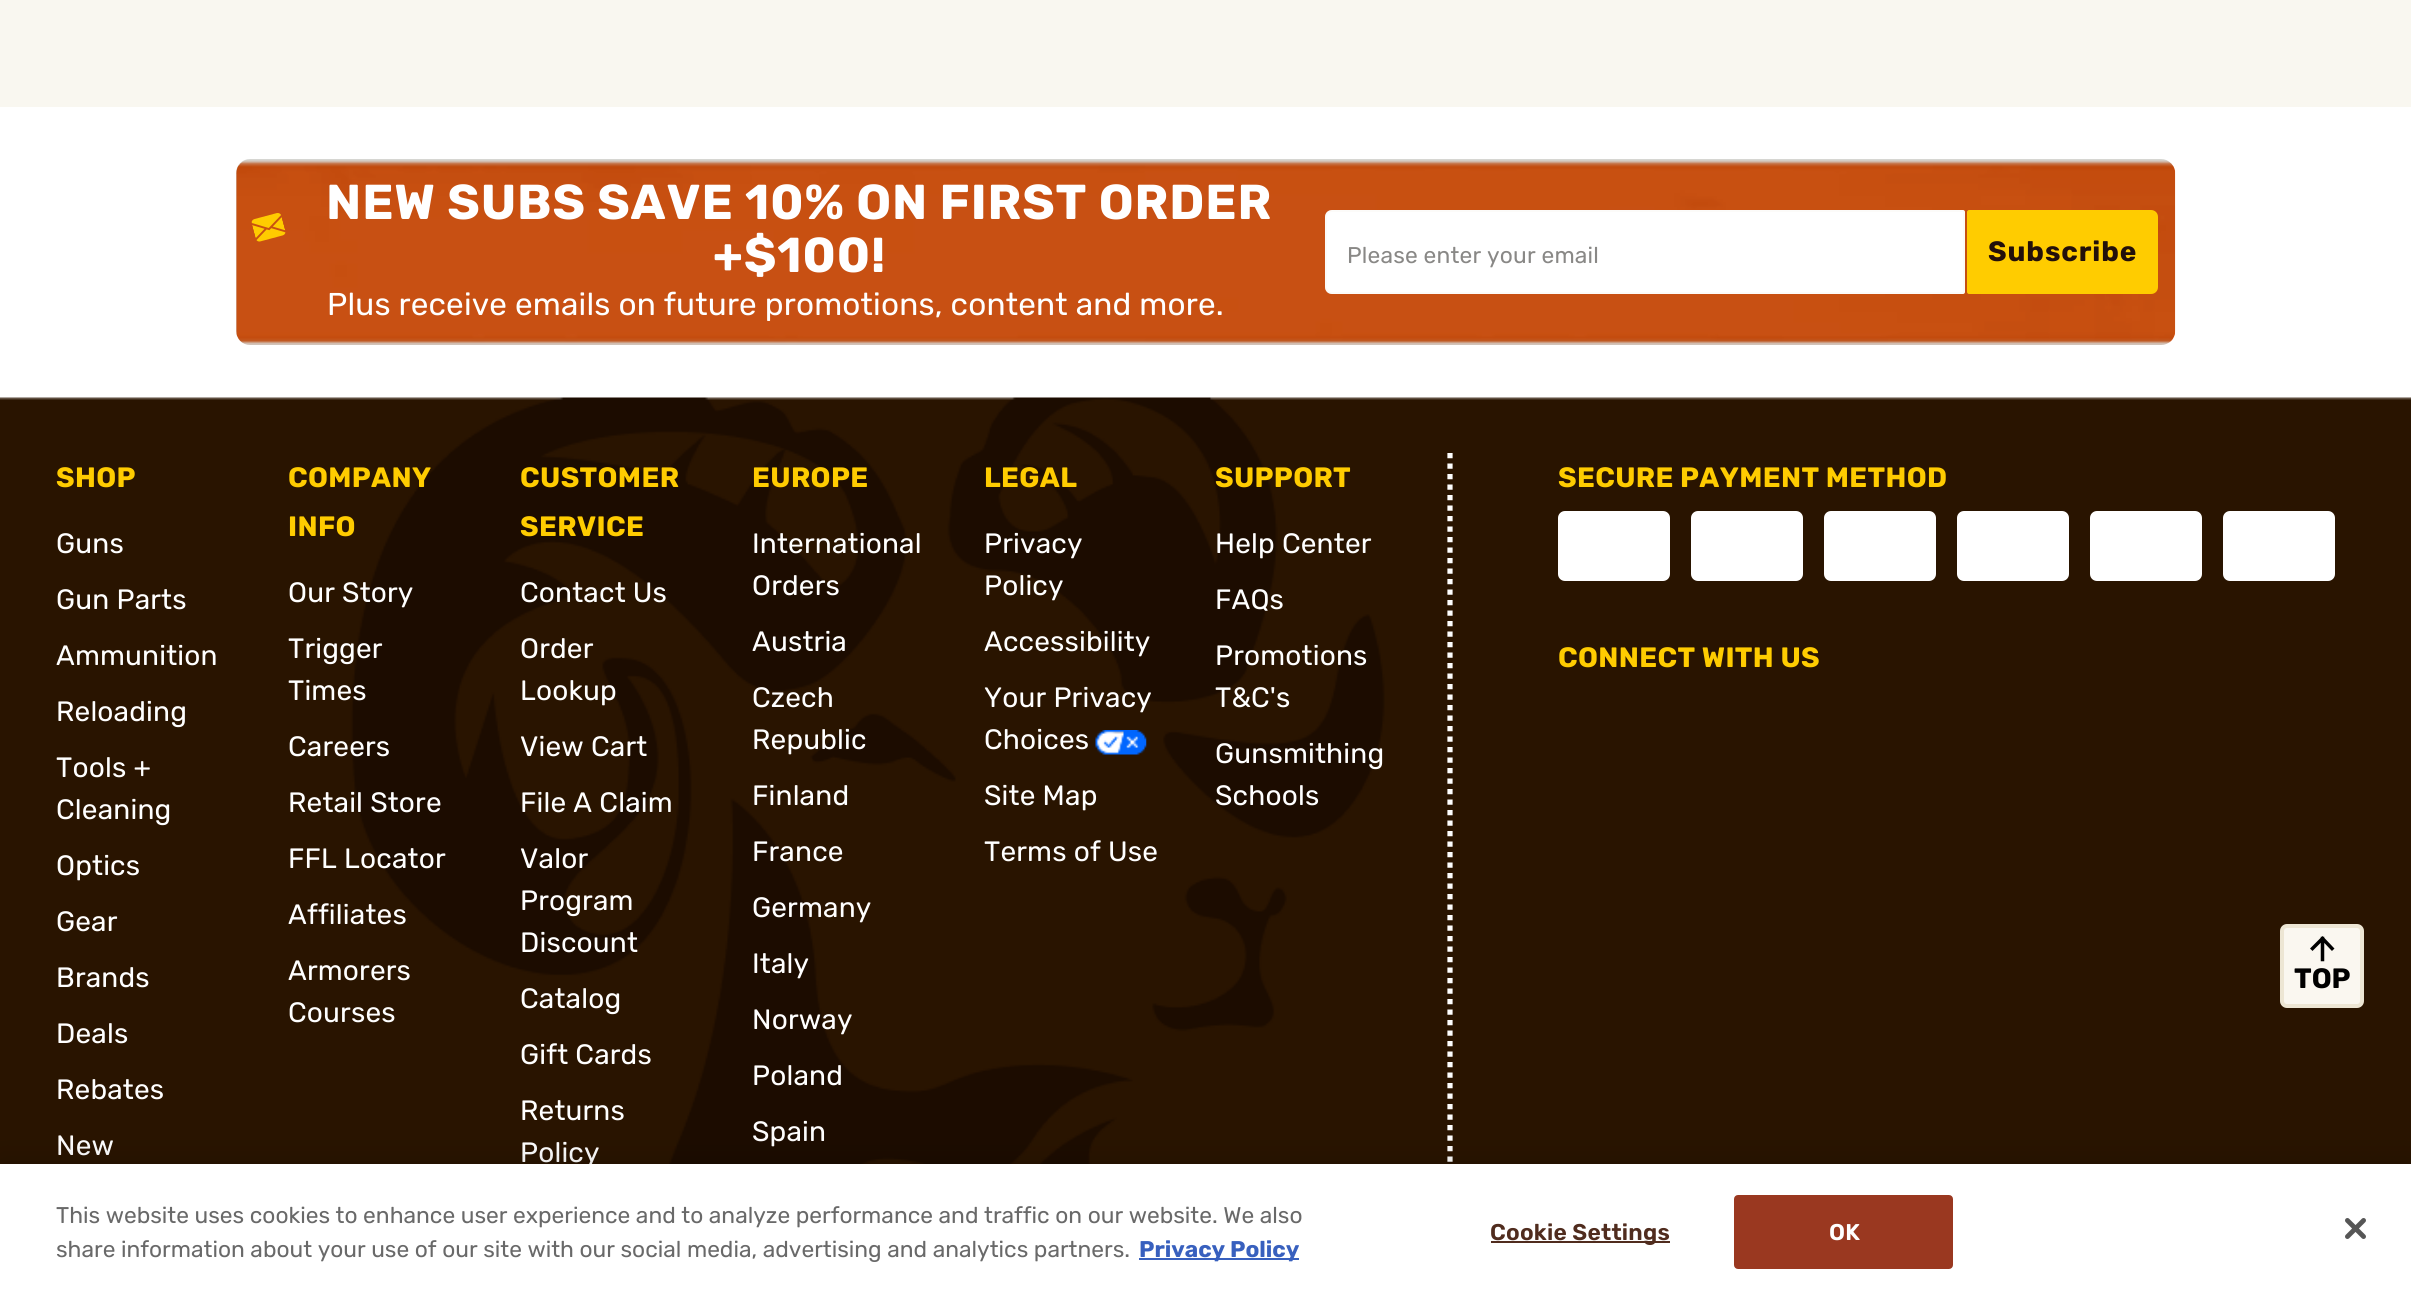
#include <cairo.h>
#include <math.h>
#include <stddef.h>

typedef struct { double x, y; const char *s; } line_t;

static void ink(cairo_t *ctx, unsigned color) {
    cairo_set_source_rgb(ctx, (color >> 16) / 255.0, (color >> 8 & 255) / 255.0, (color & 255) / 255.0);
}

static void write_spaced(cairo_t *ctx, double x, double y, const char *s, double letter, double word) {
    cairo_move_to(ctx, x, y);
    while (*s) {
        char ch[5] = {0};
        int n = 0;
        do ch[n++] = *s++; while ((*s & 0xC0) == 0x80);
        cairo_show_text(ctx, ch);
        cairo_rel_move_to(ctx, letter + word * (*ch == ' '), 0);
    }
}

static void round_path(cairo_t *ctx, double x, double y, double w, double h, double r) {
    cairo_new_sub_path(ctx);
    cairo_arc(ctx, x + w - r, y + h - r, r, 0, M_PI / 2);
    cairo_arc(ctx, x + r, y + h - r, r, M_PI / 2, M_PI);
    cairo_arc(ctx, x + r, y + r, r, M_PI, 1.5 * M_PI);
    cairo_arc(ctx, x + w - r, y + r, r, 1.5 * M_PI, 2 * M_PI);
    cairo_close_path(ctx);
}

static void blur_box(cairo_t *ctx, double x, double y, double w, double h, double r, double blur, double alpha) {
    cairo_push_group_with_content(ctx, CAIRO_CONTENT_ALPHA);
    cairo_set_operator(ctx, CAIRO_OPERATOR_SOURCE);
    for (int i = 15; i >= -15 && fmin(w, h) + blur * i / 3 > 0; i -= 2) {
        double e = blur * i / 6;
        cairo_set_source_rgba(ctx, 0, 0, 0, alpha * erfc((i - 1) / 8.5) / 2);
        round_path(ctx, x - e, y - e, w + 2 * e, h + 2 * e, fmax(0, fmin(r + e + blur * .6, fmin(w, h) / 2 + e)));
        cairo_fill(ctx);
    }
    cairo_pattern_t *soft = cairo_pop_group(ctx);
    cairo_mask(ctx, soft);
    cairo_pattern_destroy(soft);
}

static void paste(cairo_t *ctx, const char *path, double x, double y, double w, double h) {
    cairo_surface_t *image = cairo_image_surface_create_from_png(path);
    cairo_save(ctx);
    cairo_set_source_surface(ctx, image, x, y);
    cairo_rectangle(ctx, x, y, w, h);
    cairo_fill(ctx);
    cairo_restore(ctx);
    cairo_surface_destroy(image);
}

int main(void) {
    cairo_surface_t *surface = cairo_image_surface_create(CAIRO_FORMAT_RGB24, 2411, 1301);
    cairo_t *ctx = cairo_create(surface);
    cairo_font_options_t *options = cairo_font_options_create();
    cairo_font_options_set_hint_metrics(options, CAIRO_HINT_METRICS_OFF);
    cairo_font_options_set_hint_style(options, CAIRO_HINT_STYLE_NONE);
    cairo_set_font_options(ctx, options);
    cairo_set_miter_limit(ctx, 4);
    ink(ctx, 0xFFFFFF);
    cairo_paint(ctx);
    ink(ctx, 0xF9F7F0);
    cairo_rectangle(ctx, 0, 0, 2411, 107);
    cairo_fill(ctx);
    paste(ctx, "media/1.png", 236, 160, 1940, 185);
    cairo_set_source_rgba(ctx, 0.204, 0.212, 0.125, 0.2);
    round_path(ctx, 236, 159, 1939, 186, 14);
    cairo_fill(ctx);
    cairo_select_font_face(ctx, "Rubik", CAIRO_FONT_SLANT_NORMAL, CAIRO_FONT_WEIGHT_BOLD);
    cairo_set_font_size(ctx, 49);
    ink(ctx, 0xFFFFFF);
    write_spaced(ctx, 326, 219, "NEW SUBS SAVE 10% ON FIRST ORDER", 0.9, 0);
    paste(ctx, "media/2.png", 251, 213, 35, 29);
    write_spaced(ctx, 713, 272, "+$100!", 0.9, 0);
    cairo_select_font_face(ctx, "Rubik", CAIRO_FONT_SLANT_NORMAL, CAIRO_FONT_WEIGHT_NORMAL);
    cairo_set_font_size(ctx, 31.5);
    write_spaced(ctx, 327, 315, "Plus receive emails on future promotions, content and more.", 0.18, 0);
    cairo_new_path(ctx);
    cairo_move_to(ctx, 1332, 210);
    cairo_line_to(ctx, 1963, 210);
    cairo_curve_to(ctx, 1964, 210, 1965, 211, 1965, 212);
    cairo_line_to(ctx, 1965, 292);
    cairo_curve_to(ctx, 1965, 293, 1964, 294, 1963, 294);
    cairo_line_to(ctx, 1332, 294);
    cairo_curve_to(ctx, 1328, 294, 1325, 291, 1325, 287);
    cairo_line_to(ctx, 1325, 217);
    cairo_curve_to(ctx, 1325, 213, 1328, 210, 1332, 210);
    cairo_close_path(ctx);
    cairo_fill(ctx);
    cairo_new_path(ctx);
    cairo_move_to(ctx, 1332, 211);
    cairo_line_to(ctx, 1963, 211);
    cairo_curve_to(ctx, 1963.5, 211, 1964, 211.5, 1964, 212);
    cairo_line_to(ctx, 1964, 292);
    cairo_curve_to(ctx, 1964, 292.5, 1963.5, 293, 1963, 293);
    cairo_line_to(ctx, 1332, 293);
    cairo_curve_to(ctx, 1328.5, 293, 1326, 290.5, 1326, 287);
    cairo_line_to(ctx, 1326, 217);
    cairo_curve_to(ctx, 1326, 213.5, 1328.5, 211, 1332, 211);
    cairo_close_path(ctx);
    cairo_set_source_rgba(ctx, 0.965, 0.953, 0.914, 0.25);
    cairo_stroke(ctx);
    cairo_set_font_size(ctx, 22.75);
    ink(ctx, 0x898886);
    write_spaced(ctx, 1347, 263, "Please enter your email", 0.18, 0);
    ink(ctx, 0xFFCC00);
    cairo_new_path(ctx);
    cairo_move_to(ctx, 1969, 210);
    cairo_line_to(ctx, 2151, 210);
    cairo_curve_to(ctx, 2155, 210, 2158, 213, 2158, 217);
    cairo_line_to(ctx, 2158, 287);
    cairo_curve_to(ctx, 2158, 291, 2155, 294, 2151, 294);
    cairo_line_to(ctx, 1969, 294);
    cairo_curve_to(ctx, 1968, 294, 1967, 293, 1967, 292);
    cairo_line_to(ctx, 1967, 212);
    cairo_curve_to(ctx, 1967, 211, 1968, 210, 1969, 210);
    cairo_close_path(ctx);
    cairo_fill(ctx);
    cairo_select_font_face(ctx, "Rubik", CAIRO_FONT_SLANT_NORMAL, CAIRO_FONT_WEIGHT_BOLD);
    cairo_set_font_size(ctx, 28);
    ink(ctx, 0x23100A);
    write_spaced(ctx, 1988, 261, "Subscribe", 0.9, 0);
    paste(ctx, "media/3.png", 0, 397, 2411, 767);
    ink(ctx, 0xFFCC00);
    write_spaced(ctx, 56, 487, "SHOP", 0.35, 0);
    cairo_select_font_face(ctx, "Rubik", CAIRO_FONT_SLANT_NORMAL, CAIRO_FONT_WEIGHT_NORMAL);
    ink(ctx, 0xFFFFFF);
    {
        static const line_t items[] = {
            {56, 553, "Guns"},
            {56, 609, "Gun Parts"},
            {56, 665, "Ammunition"},
            {56, 721, "Reloading"},
            {56, 777, "Tools +"},
            {56, 819, "Cleaning"},
            {56, 875, "Optics"},
            {56, 931, "Gear"},
            {56, 987, "Brands"},
            {56, 1043, "Deals"},
            {56, 1099, "Rebates"},
            {56, 1155, "New"},
        };
        for (size_t i = 0; i < sizeof items / sizeof *items; i++) {
            write_spaced(ctx, items[i].x, items[i].y, items[i].s, 0.18, 0);
        }
    }
    cairo_select_font_face(ctx, "Rubik", CAIRO_FONT_SLANT_NORMAL, CAIRO_FONT_WEIGHT_BOLD);
    ink(ctx, 0xFFCC00);
    write_spaced(ctx, 288, 487, "COMPANY", 0.35, 0);
    write_spaced(ctx, 288, 536, "INFO", 0.35, 0);
    cairo_select_font_face(ctx, "Rubik", CAIRO_FONT_SLANT_NORMAL, CAIRO_FONT_WEIGHT_NORMAL);
    ink(ctx, 0xFFFFFF);
    {
        static const line_t items[] = {
            {288, 602, "Our Story"},
            {288, 658, "Trigger"},
            {288, 700, "Times"},
            {288, 756, "Careers"},
            {288, 812, "Retail Store"},
            {288, 868, "FFL Locator"},
            {288, 924, "Affiliates"},
            {288, 980, "Armorers"},
            {288, 1022, "Courses"},
        };
        for (size_t i = 0; i < sizeof items / sizeof *items; i++) {
            write_spaced(ctx, items[i].x, items[i].y, items[i].s, 0.18, 0);
        }
    }
    cairo_select_font_face(ctx, "Rubik", CAIRO_FONT_SLANT_NORMAL, CAIRO_FONT_WEIGHT_BOLD);
    ink(ctx, 0xFFCC00);
    write_spaced(ctx, 520, 487, "CUSTOMER", 0.35, 0);
    write_spaced(ctx, 520, 536, "SERVICE", 0.35, 0);
    cairo_select_font_face(ctx, "Rubik", CAIRO_FONT_SLANT_NORMAL, CAIRO_FONT_WEIGHT_NORMAL);
    ink(ctx, 0xFFFFFF);
    {
        static const line_t items[] = {
            {520, 602, "Contact Us"},
            {520, 658, "Order"},
            {520, 700, "Lookup"},
            {520, 756, "View Cart"},
            {520, 812, "File A Claim"},
            {520, 868, "Valor"},
            {520, 910, "Program"},
            {520, 952, "Discount"},
            {520, 1008, "Catalog"},
            {520, 1064, "Gift Cards"},
            {520, 1120, "Returns"},
            {520, 1162, "Policy"},
        };
        for (size_t i = 0; i < sizeof items / sizeof *items; i++) {
            write_spaced(ctx, items[i].x, items[i].y, items[i].s, 0.18, 0);
        }
    }
    cairo_select_font_face(ctx, "Rubik", CAIRO_FONT_SLANT_NORMAL, CAIRO_FONT_WEIGHT_BOLD);
    ink(ctx, 0xFFCC00);
    write_spaced(ctx, 752, 487, "EUROPE", 0.35, 0);
    cairo_select_font_face(ctx, "Rubik", CAIRO_FONT_SLANT_NORMAL, CAIRO_FONT_WEIGHT_NORMAL);
    ink(ctx, 0xFFFFFF);
    {
        static const line_t items[] = {
            {752, 553, "International"},
            {752, 595, "Orders"},
            {752, 651, "Austria"},
            {752, 707, "Czech"},
            {752, 749, "Republic"},
            {752, 805, "Finland"},
            {752, 861, "France"},
            {752, 917, "Germany"},
            {752, 973, "Italy"},
            {752, 1029, "Norway"},
            {752, 1085, "Poland"},
            {752, 1141, "Spain"},
        };
        for (size_t i = 0; i < sizeof items / sizeof *items; i++) {
            write_spaced(ctx, items[i].x, items[i].y, items[i].s, 0.18, 0);
        }
    }
    cairo_select_font_face(ctx, "Rubik", CAIRO_FONT_SLANT_NORMAL, CAIRO_FONT_WEIGHT_BOLD);
    ink(ctx, 0xFFCC00);
    write_spaced(ctx, 984, 487, "LEGAL", 0.35, 0);
    cairo_select_font_face(ctx, "Rubik", CAIRO_FONT_SLANT_NORMAL, CAIRO_FONT_WEIGHT_NORMAL);
    ink(ctx, 0xFFFFFF);
    {
        static const line_t items[] = {
            {984, 553, "Privacy"},
            {984, 595, "Policy"},
            {984, 651, "Accessibility"},
            {984, 707, "Your Privacy"},
            {984, 749, "Choices"},
        };
        for (size_t i = 0; i < sizeof items / sizeof *items; i++) {
            write_spaced(ctx, items[i].x, items[i].y, items[i].s, 0.18, 0);
        }
    }
    paste(ctx, "media/4.png", 1095, 730, 52, 25);
    write_spaced(ctx, 984, 805, "Site Map", 0.18, 0);
    write_spaced(ctx, 984, 861, "Terms of Use", 0.18, 0);
    cairo_select_font_face(ctx, "Rubik", CAIRO_FONT_SLANT_NORMAL, CAIRO_FONT_WEIGHT_BOLD);
    ink(ctx, 0xFFCC00);
    write_spaced(ctx, 1215, 487, "SUPPORT", 0.35, 0);
    cairo_select_font_face(ctx, "Rubik", CAIRO_FONT_SLANT_NORMAL, CAIRO_FONT_WEIGHT_NORMAL);
    ink(ctx, 0xFFFFFF);
    {
        static const line_t items[] = {
            {1215, 553, "Help Center"},
            {1215, 609, "FAQs"},
            {1215, 665, "Promotions"},
            {1215, 707, "T&C's"},
            {1215, 763, "Gunsmithing"},
            {1215, 805, "Schools"},
        };
        for (size_t i = 0; i < sizeof items / sizeof *items; i++) {
            write_spaced(ctx, items[i].x, items[i].y, items[i].s, 0.18, 0);
        }
    }
    cairo_new_path(ctx);
    cairo_move_to(ctx, 1450, 453);
    cairo_line_to(ctx, 1450, 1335);
    cairo_set_line_width(ctx, 5.2);
    cairo_set_dash(ctx, (double[]){5.25, 5.25}, 2, 0);
    cairo_stroke(ctx);
    cairo_select_font_face(ctx, "Rubik", CAIRO_FONT_SLANT_NORMAL, CAIRO_FONT_WEIGHT_BOLD);
    ink(ctx, 0xFFCC00);
    write_spaced(ctx, 1558, 487, "SECURE PAYMENT METHOD", 0.35, 0);
    ink(ctx, 0xFFFFFF);
    round_path(ctx, 1558, 511, 112, 70, 7);
    cairo_fill(ctx);
    round_path(ctx, 1691, 511, 112, 70, 7);
    cairo_fill(ctx);
    round_path(ctx, 1824, 511, 112, 70, 7);
    cairo_fill(ctx);
    round_path(ctx, 1957, 511, 112, 70, 7);
    cairo_fill(ctx);
    round_path(ctx, 2090, 511, 112, 70, 7);
    cairo_fill(ctx);
    round_path(ctx, 2223, 511, 112, 70, 7);
    cairo_fill(ctx);
    ink(ctx, 0xFFCC00);
    write_spaced(ctx, 1558, 667, "CONNECT WITH US", 0.35, 0);
    ink(ctx, 0xFAF7F0);
    round_path(ctx, 2282, 926, 80, 80, 5);
    cairo_fill_preserve(ctx);
    ink(ctx, 0xEDE6D4);
    cairo_set_line_width(ctx, 4);
    cairo_set_dash(ctx, NULL, 0, 0);
    cairo_stroke(ctx);
    cairo_new_path(ctx);
    cairo_move_to(ctx, 2312.5, 948.5);
    cairo_line_to(ctx, 2322.5, 938.5);
    cairo_move_to(ctx, 2322.5, 938.5);
    cairo_line_to(ctx, 2332, 948.5);
    cairo_move_to(ctx, 2322.5, 938.5);
    cairo_line_to(ctx, 2322.5, 959.5);
    ink(ctx, 0x000000);
    cairo_set_line_width(ctx, 3.5);
    cairo_set_line_cap(ctx, CAIRO_LINE_CAP_SQUARE);
    cairo_set_line_join(ctx, CAIRO_LINE_JOIN_ROUND);
    cairo_stroke(ctx);
    cairo_move_to(ctx, 2294, 988);
    cairo_show_text(ctx, "TOP");
    ink(ctx, 0x000000);
    blur_box(ctx, 0, 1164, 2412, 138, 0, 16, 0.2);
    ink(ctx, 0xFFFFFF);
    cairo_rectangle(ctx, 0, 1164, 2411, 137);
    cairo_fill(ctx);
    cairo_select_font_face(ctx, "Rubik", CAIRO_FONT_SLANT_NORMAL, CAIRO_FONT_WEIGHT_NORMAL);
    cairo_set_font_size(ctx, 22.75);
    ink(ctx, 0x696969);
    cairo_move_to(ctx, 56, 1223);
    cairo_show_text(ctx, "This website uses cookies to enhance user experience and to analyze performance and traffic on our website. We also");
    cairo_move_to(ctx, 56, 1257);
    cairo_show_text(ctx, "share information about your use of our site with our social media, advertising and analytics partners.");
    ink(ctx, 0x3860BE);
    cairo_rectangle(ctx, 1139, 1258, 160, 2);
    cairo_fill(ctx);
    cairo_select_font_face(ctx, "Rubik", CAIRO_FONT_SLANT_NORMAL, CAIRO_FONT_WEIGHT_BOLD);
    cairo_move_to(ctx, 1139, 1257);
    cairo_show_text(ctx, "Privacy Policy");
    ink(ctx, 0x502C1E);
    cairo_rectangle(ctx, 1491, 1241, 179, 2);
    cairo_fill(ctx);
    cairo_select_font_face(ctx, "Rubik SemiBold", CAIRO_FONT_SLANT_NORMAL, CAIRO_FONT_WEIGHT_NORMAL);
    write_spaced(ctx, 1490, 1240, "Cookie Settings", 0.25, 0);
    ink(ctx, 0x9A3820);
    round_path(ctx, 1735, 1196, 217, 72, 3);
    cairo_fill_preserve(ctx);
    cairo_set_line_width(ctx, 2);
    cairo_set_line_cap(ctx, CAIRO_LINE_CAP_BUTT);
    cairo_set_line_join(ctx, CAIRO_LINE_JOIN_MITER);
    cairo_stroke(ctx);
    ink(ctx, 0xFFFFFF);
    write_spaced(ctx, 1829, 1240, "OK", 0.25, 0);
    paste(ctx, "media/5.png", 2345, 1218, 21, 21);
    cairo_surface_write_to_png(surface, "image.png");
    cairo_font_options_destroy(options);
    cairo_destroy(ctx);
    cairo_surface_destroy(surface);
    return 0;
}
